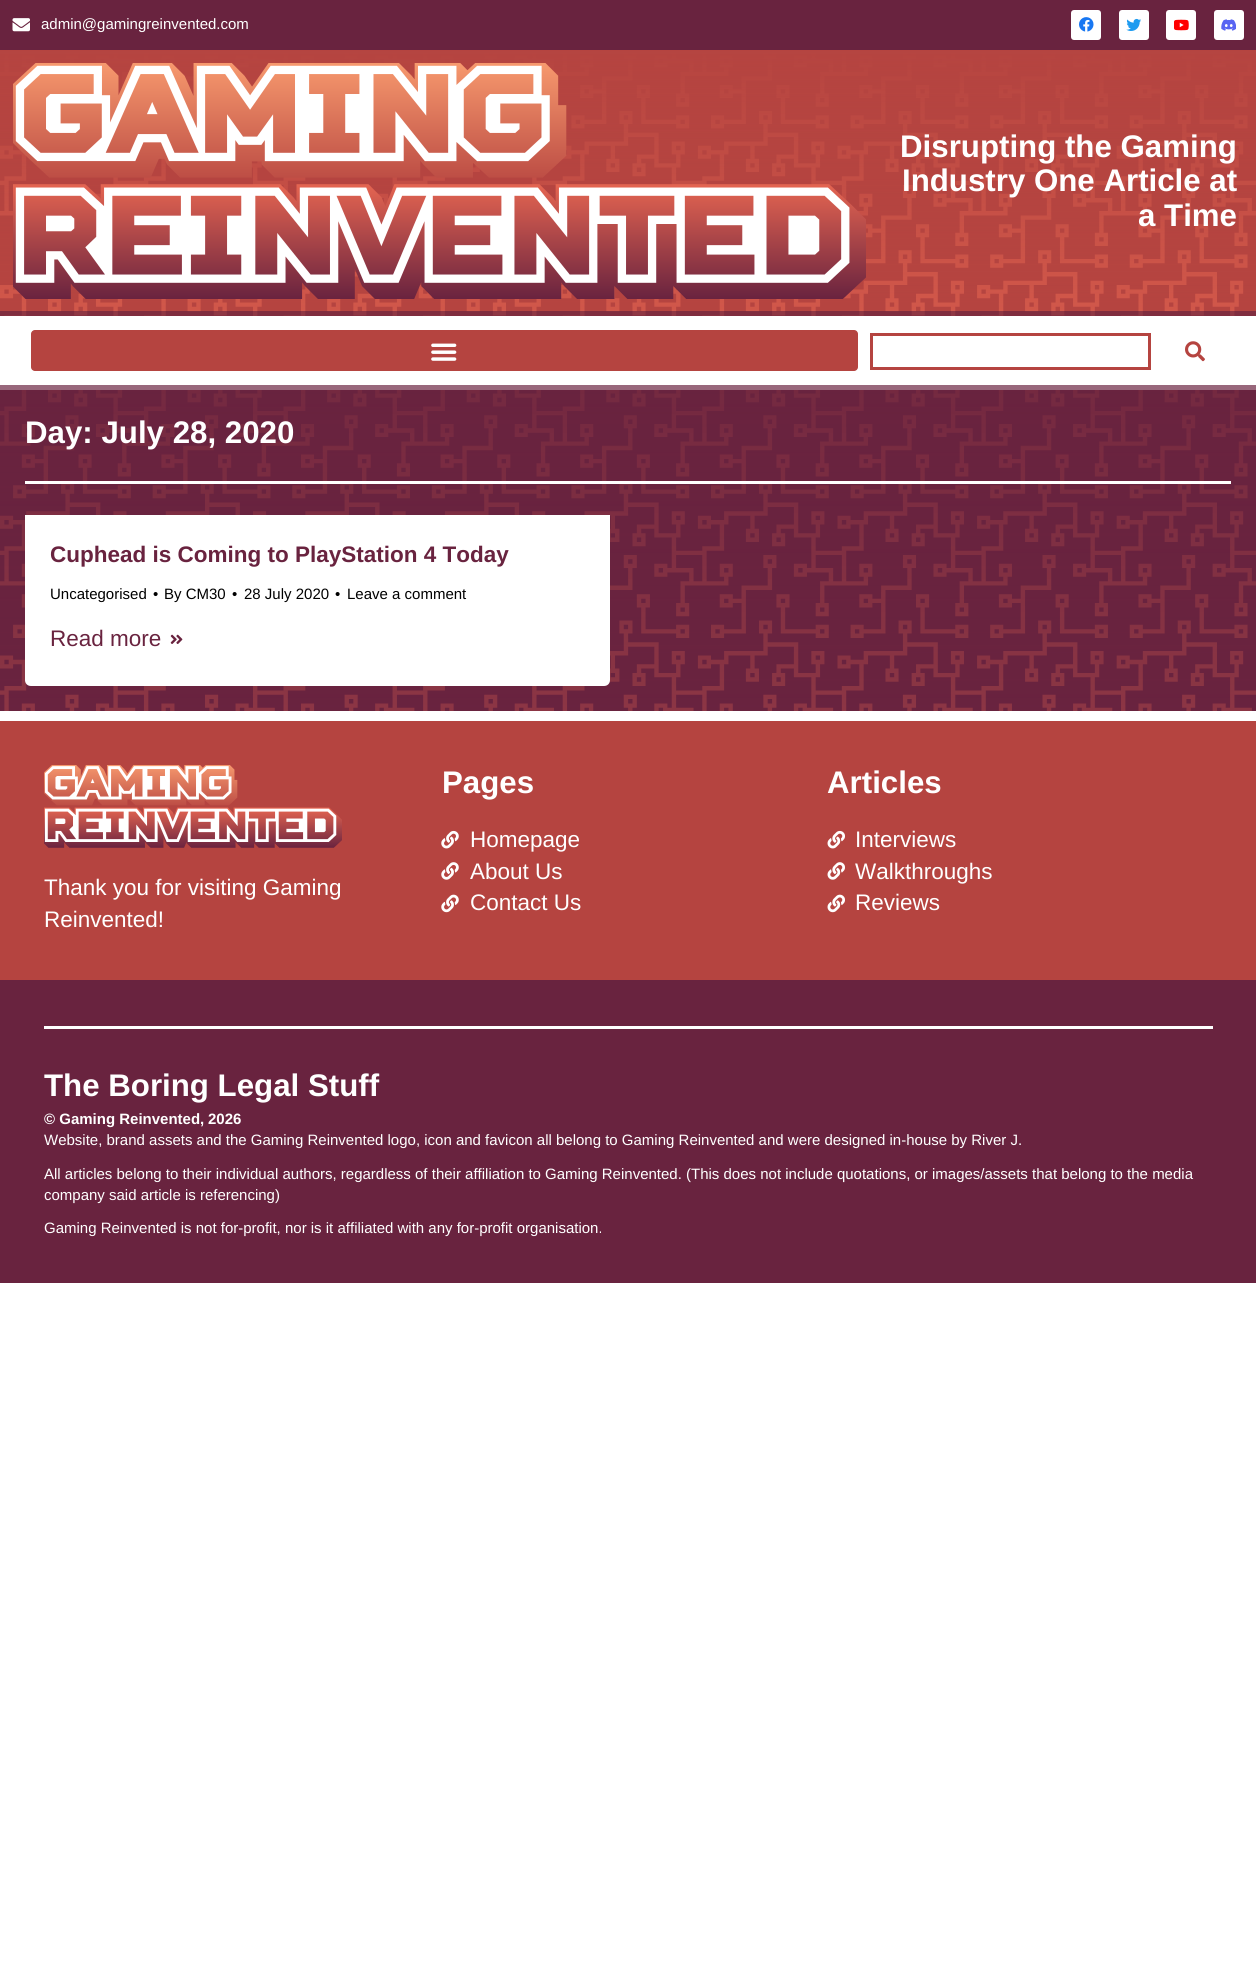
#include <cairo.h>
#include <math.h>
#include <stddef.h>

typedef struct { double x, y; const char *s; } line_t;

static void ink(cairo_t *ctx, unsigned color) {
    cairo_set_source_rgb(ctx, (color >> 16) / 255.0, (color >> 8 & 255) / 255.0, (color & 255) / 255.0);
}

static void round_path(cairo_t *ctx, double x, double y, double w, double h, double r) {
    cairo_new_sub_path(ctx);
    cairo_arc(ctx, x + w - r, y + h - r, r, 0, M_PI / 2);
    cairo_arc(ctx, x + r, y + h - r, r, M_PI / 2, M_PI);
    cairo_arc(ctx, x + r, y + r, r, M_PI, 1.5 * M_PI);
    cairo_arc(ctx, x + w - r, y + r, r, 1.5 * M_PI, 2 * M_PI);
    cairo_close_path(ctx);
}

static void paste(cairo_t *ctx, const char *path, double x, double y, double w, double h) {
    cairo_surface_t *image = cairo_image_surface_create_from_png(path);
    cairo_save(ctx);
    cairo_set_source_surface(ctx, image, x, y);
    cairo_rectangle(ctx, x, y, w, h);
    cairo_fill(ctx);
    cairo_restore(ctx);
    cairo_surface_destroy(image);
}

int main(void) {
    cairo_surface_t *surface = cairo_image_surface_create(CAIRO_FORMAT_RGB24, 1256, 1973);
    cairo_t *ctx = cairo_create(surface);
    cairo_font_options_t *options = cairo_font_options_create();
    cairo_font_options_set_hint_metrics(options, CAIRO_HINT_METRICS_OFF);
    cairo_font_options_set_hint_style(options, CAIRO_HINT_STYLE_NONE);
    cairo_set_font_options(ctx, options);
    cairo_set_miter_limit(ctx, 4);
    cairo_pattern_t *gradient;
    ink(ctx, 0xFFFFFF);
    cairo_paint(ctx);
    ink(ctx, 0x69233F);
    cairo_rectangle(ctx, 0, 0, 1256, 50);
    cairo_fill(ctx);
    paste(ctx, "media/1.png", 12, 18, 18, 14);
    cairo_select_font_face(ctx, "Liberation Sans", CAIRO_FONT_SLANT_NORMAL, CAIRO_FONT_WEIGHT_NORMAL);
    cairo_set_font_size(ctx, 15);
    ink(ctx, 0xFFFFFF);
    cairo_move_to(ctx, 41, 29);
    cairo_show_text(ctx, "admin@gamingreinvented.com");
    round_path(ctx, 1071, 10, 30, 30, 3);
    cairo_fill(ctx);
    paste(ctx, "media/2.png", 1079, 17, 15, 15);
    round_path(ctx, 1119, 10, 30, 30, 3);
    cairo_fill(ctx);
    paste(ctx, "media/3.png", 1126, 18, 15, 13);
    round_path(ctx, 1166, 10, 30, 30, 3);
    cairo_fill(ctx);
    paste(ctx, "media/4.png", 1174, 19, 15, 12);
    round_path(ctx, 1214, 10, 30, 30, 3);
    cairo_fill(ctx);
    paste(ctx, "media/5.png", 1221, 19, 15, 12);
    ink(ctx, 0xB54440);
    cairo_rectangle(ctx, 0, 53, 1256, 263);
    cairo_fill(ctx);
    paste(ctx, "media/6.png", 0, 53, 1256, 263);
    cairo_set_source_rgba(ctx, 0.412, 0.137, 0.247, 0.69);
    cairo_rectangle(ctx, 0, 311, 1256, 5);
    cairo_fill(ctx);
    gradient = cairo_pattern_create_linear(628, 50, 628, 311);
    cairo_pattern_add_color_stop_rgba(gradient, 0, 0.71, 0.267, 0.251, 1);
    cairo_pattern_add_color_stop_rgba(gradient, 1, 0.71, 0.267, 0.251, 0.42);
    cairo_set_source(ctx, gradient);
    cairo_pattern_destroy(gradient);
    cairo_rectangle(ctx, 0, 50, 1256, 261);
    cairo_fill(ctx);
    paste(ctx, "media/7.png", 13, 63, 853, 236);
    cairo_select_font_face(ctx, "Liberation Sans", CAIRO_FONT_SLANT_NORMAL, CAIRO_FONT_WEIGHT_BOLD);
    cairo_set_font_size(ctx, 31.25);
    ink(ctx, 0xFFFFFF);
    {
        static const line_t items[] = {
            {900, 157, "Disrupting the Gaming"},
            {902, 191, "Industry One Article at"},
            {1138, 226, "a Time"},
        };
        for (size_t i = 0; i < sizeof items / sizeof *items; i++) {
            cairo_move_to(ctx, items[i].x, items[i].y);
            cairo_show_text(ctx, items[i].s);
        }
    }
    ink(ctx, 0x98677B);
    cairo_rectangle(ctx, 0, 385, 1256, 5);
    cairo_fill(ctx);
    ink(ctx, 0xB54440);
    round_path(ctx, 31, 330, 827, 41, 4);
    cairo_fill(ctx);
    paste(ctx, "media/8.png", 431, 343, 26, 18);
    cairo_rectangle(ctx, 871.5, 334.5, 278, 34);
    cairo_set_line_width(ctx, 3);
    cairo_stroke(ctx);
    paste(ctx, "media/9.png", 1185, 341, 20, 21);
    ink(ctx, 0x69233F);
    cairo_rectangle(ctx, 0, 390, 1256, 321);
    cairo_fill(ctx);
    paste(ctx, "media/10.png", 0, 390, 1256, 321);
    gradient = cairo_pattern_create_linear(628, 390, 628, 711);
    cairo_pattern_add_color_stop_rgba(gradient, 0, 0.412, 0.137, 0.247, 0.91);
    cairo_pattern_add_color_stop_rgba(gradient, 1, 0.412, 0.137, 0.247, 0.72);
    cairo_set_source(ctx, gradient);
    cairo_pattern_destroy(gradient);
    cairo_rectangle(ctx, 0, 390, 1256, 321);
    cairo_fill(ctx);
    ink(ctx, 0xFFFFFF);
    cairo_move_to(ctx, 25, 443);
    cairo_show_text(ctx, "Day: July 28, 2020");
    cairo_rectangle(ctx, 25, 481, 1206, 3);
    cairo_fill(ctx);
    cairo_new_path(ctx);
    cairo_move_to(ctx, 25, 515);
    cairo_line_to(ctx, 610, 515);
    cairo_line_to(ctx, 610, 680);
    cairo_curve_to(ctx, 610, 683.5, 607.5, 686, 604, 686);
    cairo_line_to(ctx, 31, 686);
    cairo_curve_to(ctx, 27.5, 686, 25, 683.5, 25, 680);
    cairo_close_path(ctx);
    cairo_fill(ctx);
    cairo_set_font_size(ctx, 22.5);
    ink(ctx, 0x69233F);
    cairo_move_to(ctx, 50, 562);
    cairo_show_text(ctx, "Cuphead is Coming to PlayStation 4 Today");
    cairo_select_font_face(ctx, "Liberation Sans", CAIRO_FONT_SLANT_NORMAL, CAIRO_FONT_WEIGHT_NORMAL);
    cairo_set_font_size(ctx, 15);
    ink(ctx, 0x000000);
    {
        static const line_t items[] = {
            {50, 599, "Uncategorised"},
            {153, 599, "•"},
            {164, 599, "By CM30"},
            {232, 599, "•"},
            {244, 599, "28 July 2020"},
            {335, 599, "•"},
            {347, 599, "Leave a comment"},
        };
        for (size_t i = 0; i < sizeof items / sizeof *items; i++) {
            cairo_move_to(ctx, items[i].x, items[i].y);
            cairo_show_text(ctx, items[i].s);
        }
    }
    cairo_set_font_size(ctx, 22.5);
    ink(ctx, 0x69233F);
    cairo_move_to(ctx, 50, 646);
    cairo_show_text(ctx, "Read more");
    paste(ctx, "media/11.png", 170, 634, 13, 10);
    ink(ctx, 0xB54440);
    cairo_rectangle(ctx, 0, 721, 1256, 259);
    cairo_fill(ctx);
    paste(ctx, "media/12.png", 44, 765, 298, 83);
    ink(ctx, 0xFFFFFF);
    cairo_move_to(ctx, 44, 895);
    cairo_show_text(ctx, "Thank you for visiting Gaming");
    cairo_move_to(ctx, 44, 927);
    cairo_show_text(ctx, "Reinvented!");
    cairo_select_font_face(ctx, "Liberation Sans", CAIRO_FONT_SLANT_NORMAL, CAIRO_FONT_WEIGHT_BOLD);
    cairo_set_font_size(ctx, 31.25);
    cairo_move_to(ctx, 442, 793);
    cairo_show_text(ctx, "Pages");
    paste(ctx, "media/13.png", 441, 830, 18, 19);
    cairo_select_font_face(ctx, "Liberation Sans", CAIRO_FONT_SLANT_NORMAL, CAIRO_FONT_WEIGHT_NORMAL);
    cairo_set_font_size(ctx, 22.5);
    cairo_move_to(ctx, 470, 847);
    cairo_show_text(ctx, "Homepage");
    paste(ctx, "media/14.png", 441, 862, 18, 18);
    cairo_move_to(ctx, 470, 879);
    cairo_show_text(ctx, "About Us");
    paste(ctx, "media/15.png", 441, 894, 18, 19);
    cairo_move_to(ctx, 470, 910);
    cairo_show_text(ctx, "Contact Us");
    cairo_select_font_face(ctx, "Liberation Sans", CAIRO_FONT_SLANT_NORMAL, CAIRO_FONT_WEIGHT_BOLD);
    cairo_set_font_size(ctx, 31.25);
    cairo_move_to(ctx, 827, 793);
    cairo_show_text(ctx, "Articles");
    paste(ctx, "media/16.png", 827, 830, 18, 19);
    cairo_select_font_face(ctx, "Liberation Sans", CAIRO_FONT_SLANT_NORMAL, CAIRO_FONT_WEIGHT_NORMAL);
    cairo_set_font_size(ctx, 22.5);
    cairo_move_to(ctx, 855, 847);
    cairo_show_text(ctx, "Interviews");
    paste(ctx, "media/17.png", 827, 862, 18, 18);
    cairo_move_to(ctx, 855, 879);
    cairo_show_text(ctx, "Walkthroughs");
    paste(ctx, "media/18.png", 827, 894, 18, 19);
    cairo_move_to(ctx, 855, 910);
    cairo_show_text(ctx, "Reviews");
    ink(ctx, 0x69233F);
    cairo_rectangle(ctx, 0, 980, 1256, 303);
    cairo_fill(ctx);
    ink(ctx, 0xFFFFFF);
    cairo_rectangle(ctx, 44, 1026, 1169, 3);
    cairo_fill(ctx);
    cairo_select_font_face(ctx, "Liberation Sans", CAIRO_FONT_SLANT_NORMAL, CAIRO_FONT_WEIGHT_BOLD);
    cairo_set_font_size(ctx, 31.25);
    cairo_move_to(ctx, 44, 1096);
    cairo_show_text(ctx, "The Boring Legal Stuff");
    cairo_set_font_size(ctx, 15);
    cairo_move_to(ctx, 44, 1124);
    cairo_show_text(ctx, "© Gaming Reinvented,");
    cairo_move_to(ctx, 208, 1124);
    cairo_show_text(ctx, "2026");
    cairo_select_font_face(ctx, "Liberation Sans", CAIRO_FONT_SLANT_NORMAL, CAIRO_FONT_WEIGHT_NORMAL);
    {
        static const line_t items[] = {
            {44, 1145, "Website, brand assets and the Gaming Reinvented logo, icon and favicon all belong to Gaming Reinvented and were designed in-house by River J."},
            {44, 1179, "All articles belong to their individual authors, regardless of their affiliation to Gaming Reinvented. (This does not include quotations, or images/assets that belong to the media"},
            {44, 1200, "company said article is referencing)"},
            {44, 1233, "Gaming Reinvented is not for-profit, nor is it affiliated with any for-profit organisation."},
        };
        for (size_t i = 0; i < sizeof items / sizeof *items; i++) {
            cairo_move_to(ctx, items[i].x, items[i].y);
            cairo_show_text(ctx, items[i].s);
        }
    }
    cairo_surface_write_to_png(surface, "image.png");
    cairo_font_options_destroy(options);
    cairo_destroy(ctx);
    cairo_surface_destroy(surface);
    return 0;
}
